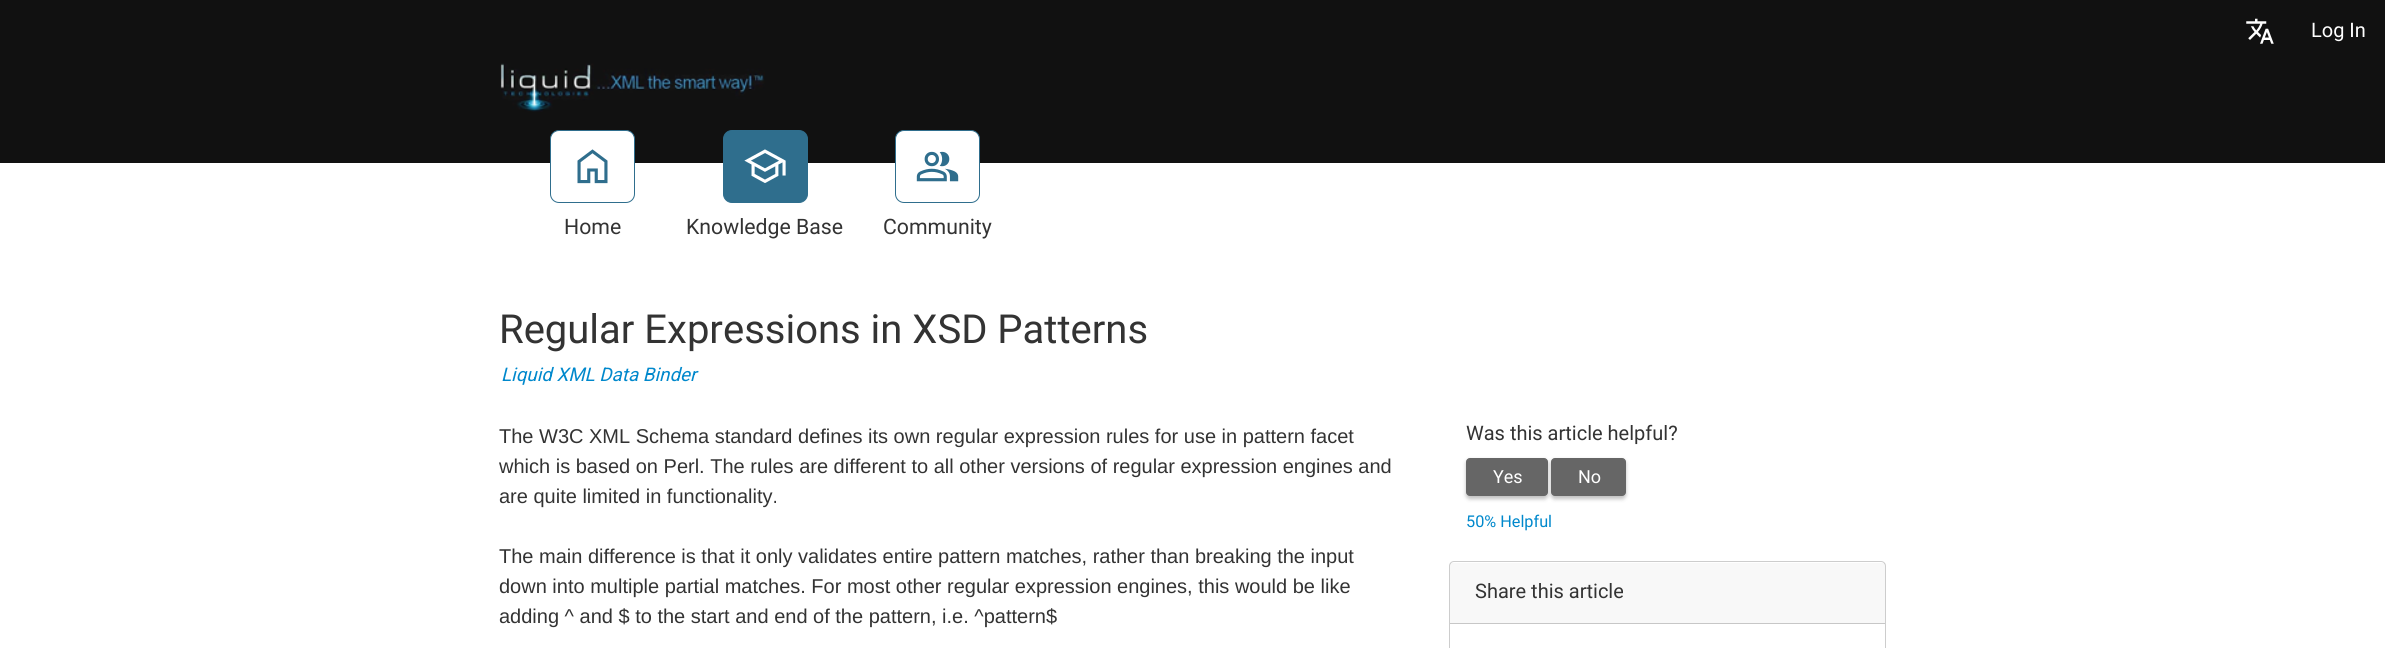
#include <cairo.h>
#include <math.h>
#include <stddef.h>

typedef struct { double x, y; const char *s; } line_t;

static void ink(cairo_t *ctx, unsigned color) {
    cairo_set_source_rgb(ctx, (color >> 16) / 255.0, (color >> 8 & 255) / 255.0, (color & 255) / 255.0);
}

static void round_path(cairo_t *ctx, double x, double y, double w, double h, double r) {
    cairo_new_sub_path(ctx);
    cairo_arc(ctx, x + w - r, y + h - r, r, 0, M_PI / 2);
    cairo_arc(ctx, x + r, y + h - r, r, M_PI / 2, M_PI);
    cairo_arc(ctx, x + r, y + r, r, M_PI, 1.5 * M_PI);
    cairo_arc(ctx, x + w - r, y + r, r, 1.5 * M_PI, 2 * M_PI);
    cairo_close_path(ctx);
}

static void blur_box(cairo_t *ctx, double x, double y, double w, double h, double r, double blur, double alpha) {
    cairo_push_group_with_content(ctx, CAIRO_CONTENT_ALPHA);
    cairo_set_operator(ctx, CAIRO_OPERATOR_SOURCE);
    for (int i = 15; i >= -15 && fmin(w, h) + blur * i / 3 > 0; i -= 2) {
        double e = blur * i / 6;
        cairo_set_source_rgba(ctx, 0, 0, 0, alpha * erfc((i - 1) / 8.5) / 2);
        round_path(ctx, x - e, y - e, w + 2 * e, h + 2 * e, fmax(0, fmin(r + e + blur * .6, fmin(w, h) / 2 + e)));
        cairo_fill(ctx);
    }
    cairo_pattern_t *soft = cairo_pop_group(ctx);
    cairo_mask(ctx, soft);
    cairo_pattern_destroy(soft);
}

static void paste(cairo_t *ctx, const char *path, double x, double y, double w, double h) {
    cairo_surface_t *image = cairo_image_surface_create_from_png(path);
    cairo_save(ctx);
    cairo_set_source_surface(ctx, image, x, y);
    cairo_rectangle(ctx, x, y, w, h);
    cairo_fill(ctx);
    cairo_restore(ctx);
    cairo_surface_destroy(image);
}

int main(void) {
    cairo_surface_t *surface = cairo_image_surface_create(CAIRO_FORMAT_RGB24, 2385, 648);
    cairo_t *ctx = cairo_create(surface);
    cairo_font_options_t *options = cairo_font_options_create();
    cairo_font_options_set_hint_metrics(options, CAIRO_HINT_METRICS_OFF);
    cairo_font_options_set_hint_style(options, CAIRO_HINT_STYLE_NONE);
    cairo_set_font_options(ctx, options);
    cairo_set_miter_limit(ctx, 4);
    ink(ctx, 0xFFFFFF);
    cairo_paint(ctx);
    ink(ctx, 0x111111);
    cairo_rectangle(ctx, 0, 0, 2385, 163);
    cairo_fill(ctx);
    paste(ctx, "media/1.png", 500, 63, 265, 49);
    paste(ctx, "media/2.png", 2246, 18, 28, 26);
    cairo_select_font_face(ctx, "Roboto", CAIRO_FONT_SLANT_NORMAL, CAIRO_FONT_WEIGHT_NORMAL);
    cairo_set_font_size(ctx, 20);
    ink(ctx, 0xFFFFFF);
    cairo_move_to(ctx, 2311, 37);
    cairo_show_text(ctx, "Log In");
    round_path(ctx, 550.5, 130.5, 84, 72, 8.5);
    cairo_fill_preserve(ctx);
    ink(ctx, 0x2F6E8D);
    cairo_set_line_width(ctx, 1);
    cairo_stroke(ctx);
    paste(ctx, "media/3.png", 577, 149, 31, 35);
    cairo_set_font_size(ctx, 21.25);
    ink(ctx, 0x333333);
    cairo_move_to(ctx, 564, 234);
    cairo_show_text(ctx, "Home");
    ink(ctx, 0x2F6E8D);
    round_path(ctx, 723.5, 130.5, 84, 72, 8.5);
    cairo_fill_preserve(ctx);
    cairo_stroke(ctx);
    paste(ctx, "media/4.png", 744, 149, 42, 34);
    ink(ctx, 0x333333);
    cairo_move_to(ctx, 686, 234);
    cairo_show_text(ctx, "Knowledge Base");
    ink(ctx, 0xFFFFFF);
    round_path(ctx, 895.5, 130.5, 84, 72, 8.5);
    cairo_fill_preserve(ctx);
    ink(ctx, 0x2F6E8D);
    cairo_stroke(ctx);
    paste(ctx, "media/5.png", 916, 151, 43, 31);
    ink(ctx, 0x333333);
    cairo_move_to(ctx, 883, 234);
    cairo_show_text(ctx, "Community");
    cairo_set_font_size(ctx, 40);
    cairo_move_to(ctx, 499, 343);
    cairo_show_text(ctx, "Regular Expressions in XSD Patterns");
    cairo_select_font_face(ctx, "Roboto", CAIRO_FONT_SLANT_ITALIC, CAIRO_FONT_WEIGHT_NORMAL);
    cairo_set_font_size(ctx, 18.75);
    ink(ctx, 0x0088CC);
    cairo_move_to(ctx, 501, 381);
    cairo_show_text(ctx, "Liquid XML Data Binder");
    cairo_select_font_face(ctx, "Liberation Sans", CAIRO_FONT_SLANT_NORMAL, CAIRO_FONT_WEIGHT_NORMAL);
    cairo_set_font_size(ctx, 20);
    ink(ctx, 0x333333);
    {
        static const line_t items[] = {
            {499, 443, "The W3C XML Schema standard defines its own regular expression rules for use in pattern facet"},
            {499, 473, "which is based on Perl. The rules are different to all other versions of regular expression engines and"},
            {499, 503, "are quite limited in functionality."},
            {499, 563, "The main difference is that it only validates entire pattern matches, rather than breaking the input"},
            {499, 593, "down into multiple partial matches. For most other regular expression engines, this would be like"},
            {499, 623, "adding ^ and $ to the start and end of the pattern, i.e. ^pattern$"},
        };
        for (size_t i = 0; i < sizeof items / sizeof *items; i++) {
            cairo_move_to(ctx, items[i].x, items[i].y);
            cairo_show_text(ctx, items[i].s);
        }
    }
    cairo_select_font_face(ctx, "Roboto", CAIRO_FONT_SLANT_NORMAL, CAIRO_FONT_WEIGHT_NORMAL);
    cairo_move_to(ctx, 1466, 440);
    cairo_show_text(ctx, "Was this article helpful?");
    ink(ctx, 0x000000);
    blur_box(ctx, 1466, 460, 82, 39, 4, 2, 0.25);
    ink(ctx, 0x666666);
    round_path(ctx, 1466.5, 458.5, 81, 37, 3.5);
    cairo_fill_preserve(ctx);
    cairo_stroke(ctx);
    cairo_set_font_size(ctx, 18);
    ink(ctx, 0xFFFFFF);
    cairo_move_to(ctx, 1493, 483);
    cairo_show_text(ctx, "Yes");
    ink(ctx, 0x000000);
    blur_box(ctx, 1551, 460, 75, 39, 4, 2, 0.25);
    ink(ctx, 0x666666);
    round_path(ctx, 1551.5, 458.5, 74, 37, 3.5);
    cairo_fill_preserve(ctx);
    cairo_stroke(ctx);
    ink(ctx, 0xFFFFFF);
    cairo_move_to(ctx, 1578, 483);
    cairo_show_text(ctx, "No");
    cairo_set_font_size(ctx, 16.25);
    ink(ctx, 0x0088CC);
    cairo_move_to(ctx, 1466, 527);
    cairo_show_text(ctx, "50% Helpful");
    round_path(ctx, 1449.5, 561.5, 436, 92, 4.5);
    ink(ctx, 0xCDCDCD);
    cairo_stroke(ctx);
    cairo_set_source_rgba(ctx, 0, 0, 0, 0.03);
    cairo_rectangle(ctx, 1450, 563, 435, 60);
    cairo_fill(ctx);
    ink(ctx, 0xC7C7C7);
    cairo_rectangle(ctx, 1450, 623, 435, 1);
    cairo_fill(ctx);
    cairo_set_font_size(ctx, 20);
    ink(ctx, 0x333333);
    cairo_move_to(ctx, 1475, 598);
    cairo_show_text(ctx, "Share this article");
    cairo_surface_write_to_png(surface, "image.png");
    cairo_font_options_destroy(options);
    cairo_destroy(ctx);
    cairo_surface_destroy(surface);
    return 0;
}
